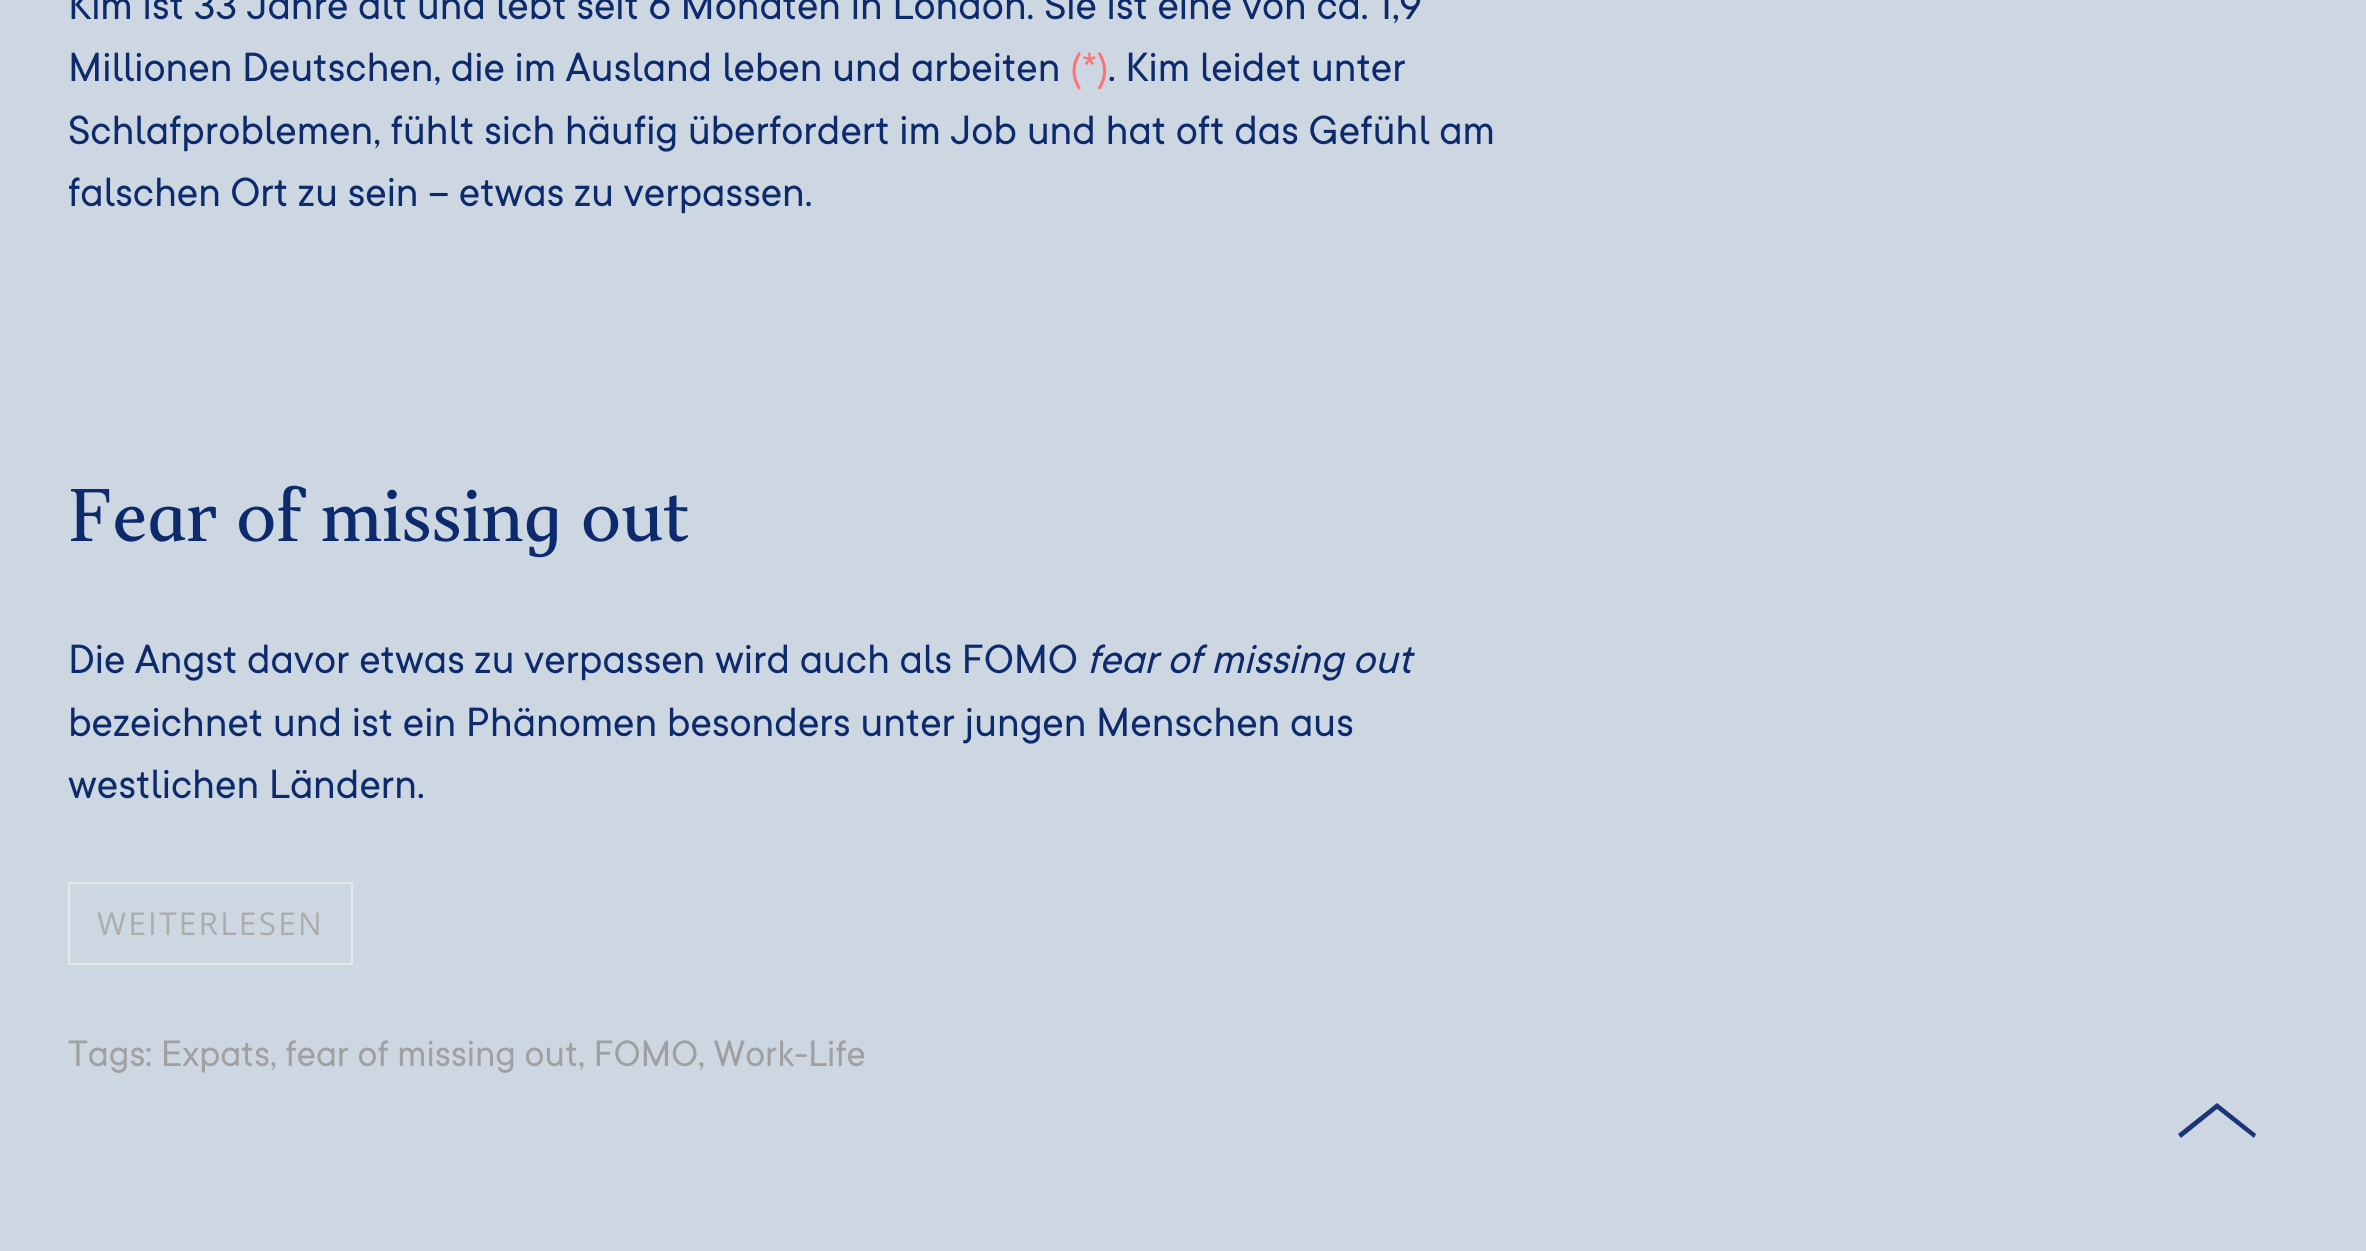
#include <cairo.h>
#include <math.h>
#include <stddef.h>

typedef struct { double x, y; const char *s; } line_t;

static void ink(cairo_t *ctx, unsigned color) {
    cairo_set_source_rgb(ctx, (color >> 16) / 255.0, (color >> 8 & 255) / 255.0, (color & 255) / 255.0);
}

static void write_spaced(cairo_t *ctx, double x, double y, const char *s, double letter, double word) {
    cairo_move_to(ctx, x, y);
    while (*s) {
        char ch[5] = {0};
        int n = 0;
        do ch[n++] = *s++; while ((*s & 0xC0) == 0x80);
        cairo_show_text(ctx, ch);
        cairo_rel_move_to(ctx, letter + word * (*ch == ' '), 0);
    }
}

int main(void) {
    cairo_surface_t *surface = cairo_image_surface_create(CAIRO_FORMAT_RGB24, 2366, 1251);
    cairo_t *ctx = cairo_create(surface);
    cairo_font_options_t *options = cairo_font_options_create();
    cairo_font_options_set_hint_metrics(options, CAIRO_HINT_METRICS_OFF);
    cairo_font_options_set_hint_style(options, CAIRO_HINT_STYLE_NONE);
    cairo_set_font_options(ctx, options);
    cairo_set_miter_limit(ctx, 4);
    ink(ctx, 0xCCD7E2);
    cairo_paint(ctx);
    cairo_select_font_face(ctx, "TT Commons", CAIRO_FONT_SLANT_NORMAL, CAIRO_FONT_WEIGHT_NORMAL);
    cairo_set_font_size(ctx, 45);
    ink(ctx, 0x0D2A6D);
    cairo_move_to(ctx, 68, 19);
    cairo_show_text(ctx, "Kim ist 33 Jahre alt und lebt seit 6 Monaten in London. Sie ist eine von ca. 1,9");
    cairo_move_to(ctx, 68, 81);
    cairo_show_text(ctx, "Millionen Deutschen, die im Ausland leben und arbeiten");
    ink(ctx, 0xFC747A);
    cairo_move_to(ctx, 1070, 81);
    cairo_show_text(ctx, "(*)");
    ink(ctx, 0x0D2A6D);
    {
        static const line_t items[] = {
            {1108, 81, ". Kim leidet unter"},
            {68, 144, "Schlafproblemen, fühlt sich häufig überfordert im Job und hat oft das Gefühl am"},
            {68, 206, "falschen Ort zu sein – etwas zu verpassen."},
        };
        for (size_t i = 0; i < sizeof items / sizeof *items; i++) {
            cairo_move_to(ctx, items[i].x, items[i].y);
            cairo_show_text(ctx, items[i].s);
        }
    }
    cairo_select_font_face(ctx, "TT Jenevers", CAIRO_FONT_SLANT_NORMAL, CAIRO_FONT_WEIGHT_NORMAL);
    cairo_set_font_size(ctx, 67.5);
    cairo_move_to(ctx, 68, 541);
    cairo_show_text(ctx, "Fear of missing out");
    cairo_select_font_face(ctx, "TT Commons", CAIRO_FONT_SLANT_NORMAL, CAIRO_FONT_WEIGHT_NORMAL);
    cairo_set_font_size(ctx, 45);
    cairo_move_to(ctx, 68, 673);
    cairo_show_text(ctx, "Die Angst davor etwas zu verpassen wird auch als FOMO");
    cairo_select_font_face(ctx, "TT Commons", CAIRO_FONT_SLANT_ITALIC, CAIRO_FONT_WEIGHT_NORMAL);
    cairo_move_to(ctx, 1087, 673);
    cairo_show_text(ctx, "fear of missing out");
    cairo_select_font_face(ctx, "TT Commons", CAIRO_FONT_SLANT_NORMAL, CAIRO_FONT_WEIGHT_NORMAL);
    cairo_move_to(ctx, 68, 736);
    cairo_show_text(ctx, "bezeichnet und ist ein Phänomen besonders unter jungen Menschen aus");
    cairo_move_to(ctx, 68, 798);
    cairo_show_text(ctx, "westlichen Ländern.");
    cairo_rectangle(ctx, 69, 883, 283, 81);
    ink(ctx, 0xE6E6E6);
    cairo_stroke(ctx);
    cairo_select_font_face(ctx, "Open Sans", CAIRO_FONT_SLANT_NORMAL, CAIRO_FONT_WEIGHT_NORMAL);
    cairo_set_font_size(ctx, 31.5);
    ink(ctx, 0xACACAC);
    write_spaced(ctx, 97, 935, "WEITERLESEN", 2.25, 0);
    cairo_select_font_face(ctx, "TT Commons", CAIRO_FONT_SLANT_NORMAL, CAIRO_FONT_WEIGHT_NORMAL);
    cairo_set_font_size(ctx, 40.5);
    ink(ctx, 0xA0A0A0);
    cairo_move_to(ctx, 68, 1066);
    cairo_show_text(ctx, "Tags: Expats, fear of missing out, FOMO, Work-Life");
    ink(ctx, 0x1A3675);
    cairo_new_path(ctx);
    cairo_move_to(ctx, 2256, 1134);
    cairo_line_to(ctx, 2254, 1138);
    cairo_line_to(ctx, 2217, 1109);
    cairo_line_to(ctx, 2181, 1138);
    cairo_line_to(ctx, 2178, 1134);
    cairo_line_to(ctx, 2217, 1103);
    cairo_close_path(ctx);
    cairo_fill(ctx);
    cairo_surface_write_to_png(surface, "image.png");
    cairo_font_options_destroy(options);
    cairo_destroy(ctx);
    cairo_surface_destroy(surface);
    return 0;
}
